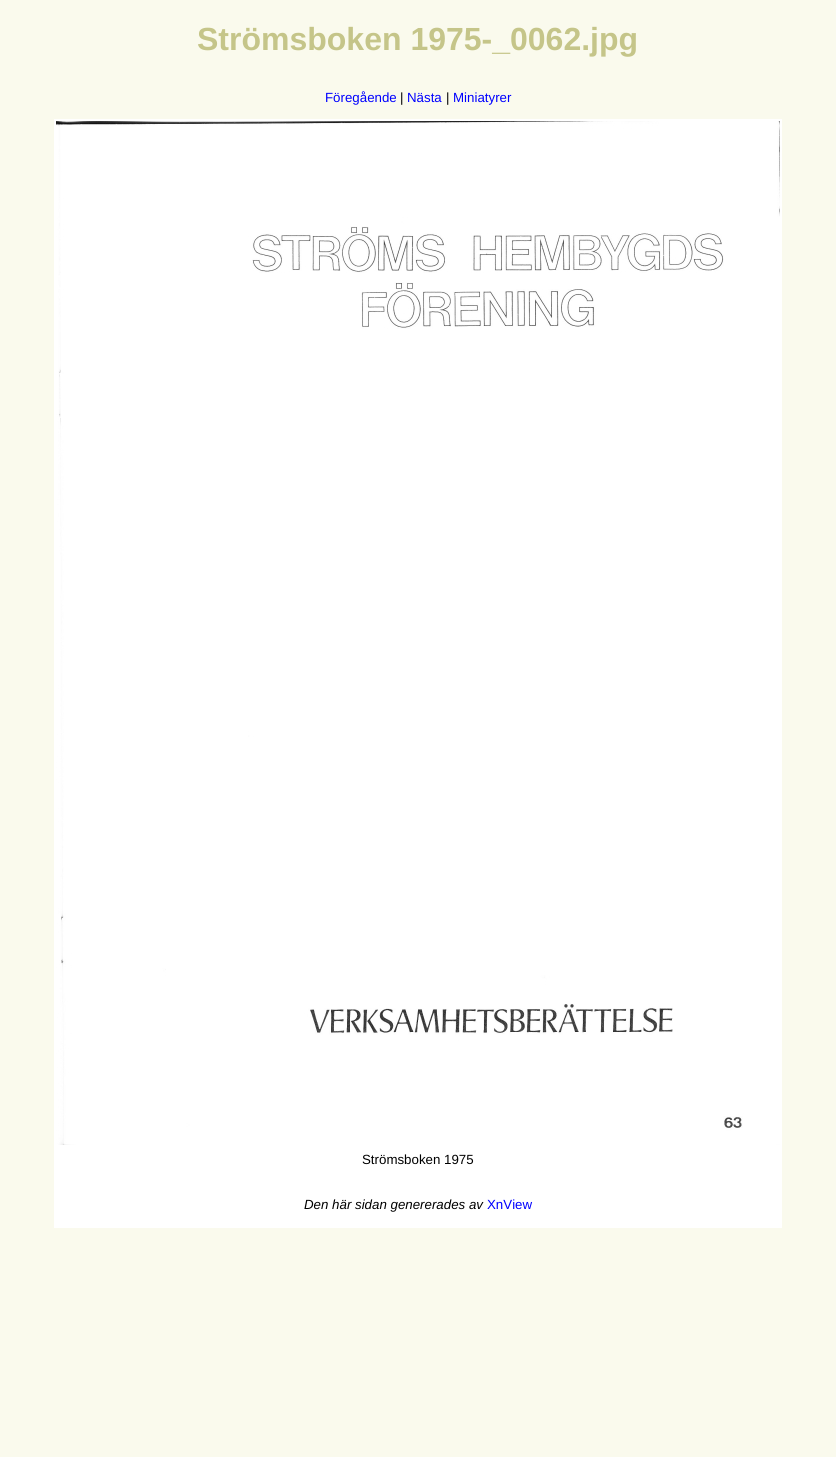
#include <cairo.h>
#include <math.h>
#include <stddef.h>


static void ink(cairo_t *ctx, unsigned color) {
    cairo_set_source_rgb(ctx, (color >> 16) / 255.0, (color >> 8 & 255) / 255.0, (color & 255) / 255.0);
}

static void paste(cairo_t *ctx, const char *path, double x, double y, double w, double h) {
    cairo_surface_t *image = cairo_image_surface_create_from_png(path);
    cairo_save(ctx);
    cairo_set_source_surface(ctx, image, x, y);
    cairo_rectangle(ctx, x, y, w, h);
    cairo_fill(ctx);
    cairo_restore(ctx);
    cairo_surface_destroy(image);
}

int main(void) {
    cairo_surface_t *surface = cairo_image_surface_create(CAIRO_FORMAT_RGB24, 836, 1457);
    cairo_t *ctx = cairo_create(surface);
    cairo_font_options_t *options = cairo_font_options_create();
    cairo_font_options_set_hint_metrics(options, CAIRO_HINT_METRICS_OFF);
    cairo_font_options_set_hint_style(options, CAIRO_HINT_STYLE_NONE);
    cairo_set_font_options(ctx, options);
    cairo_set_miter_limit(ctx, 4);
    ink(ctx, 0xFAFAED);
    cairo_paint(ctx);
    cairo_select_font_face(ctx, "Liberation Sans", CAIRO_FONT_SLANT_NORMAL, CAIRO_FONT_WEIGHT_BOLD);
    cairo_set_font_size(ctx, 32);
    ink(ctx, 0xC5C589);
    cairo_move_to(ctx, 197, 50);
    cairo_show_text(ctx, "Strömsboken 1975-_0062.jpg");
    cairo_select_font_face(ctx, "Liberation Sans", CAIRO_FONT_SLANT_NORMAL, CAIRO_FONT_WEIGHT_NORMAL);
    cairo_set_font_size(ctx, 13.3);
    ink(ctx, 0x0000FF);
    cairo_move_to(ctx, 325, 102);
    cairo_show_text(ctx, "Föregående");
    ink(ctx, 0x000000);
    cairo_move_to(ctx, 400, 102);
    cairo_show_text(ctx, "|");
    ink(ctx, 0x0000FF);
    cairo_move_to(ctx, 407, 102);
    cairo_show_text(ctx, "Nästa");
    ink(ctx, 0x000000);
    cairo_move_to(ctx, 446, 102);
    cairo_show_text(ctx, "|");
    ink(ctx, 0x0000FF);
    cairo_move_to(ctx, 453, 102);
    cairo_show_text(ctx, "Miniatyrer");
    ink(ctx, 0xFFFFFF);
    cairo_rectangle(ctx, 54, 119, 728, 1109);
    cairo_fill(ctx);
    paste(ctx, "media/1.png", 56, 121, 724, 1024);
    ink(ctx, 0x000000);
    cairo_move_to(ctx, 362, 1164);
    cairo_show_text(ctx, "Strömsboken 1975");
    cairo_select_font_face(ctx, "Liberation Sans", CAIRO_FONT_SLANT_ITALIC, CAIRO_FONT_WEIGHT_NORMAL);
    cairo_move_to(ctx, 304, 1209);
    cairo_show_text(ctx, "Den här sidan genererades av");
    cairo_select_font_face(ctx, "Liberation Sans", CAIRO_FONT_SLANT_NORMAL, CAIRO_FONT_WEIGHT_NORMAL);
    ink(ctx, 0x0000FF);
    cairo_move_to(ctx, 487, 1209);
    cairo_show_text(ctx, "XnView");
    cairo_surface_write_to_png(surface, "image.png");
    cairo_font_options_destroy(options);
    cairo_destroy(ctx);
    cairo_surface_destroy(surface);
    return 0;
}
